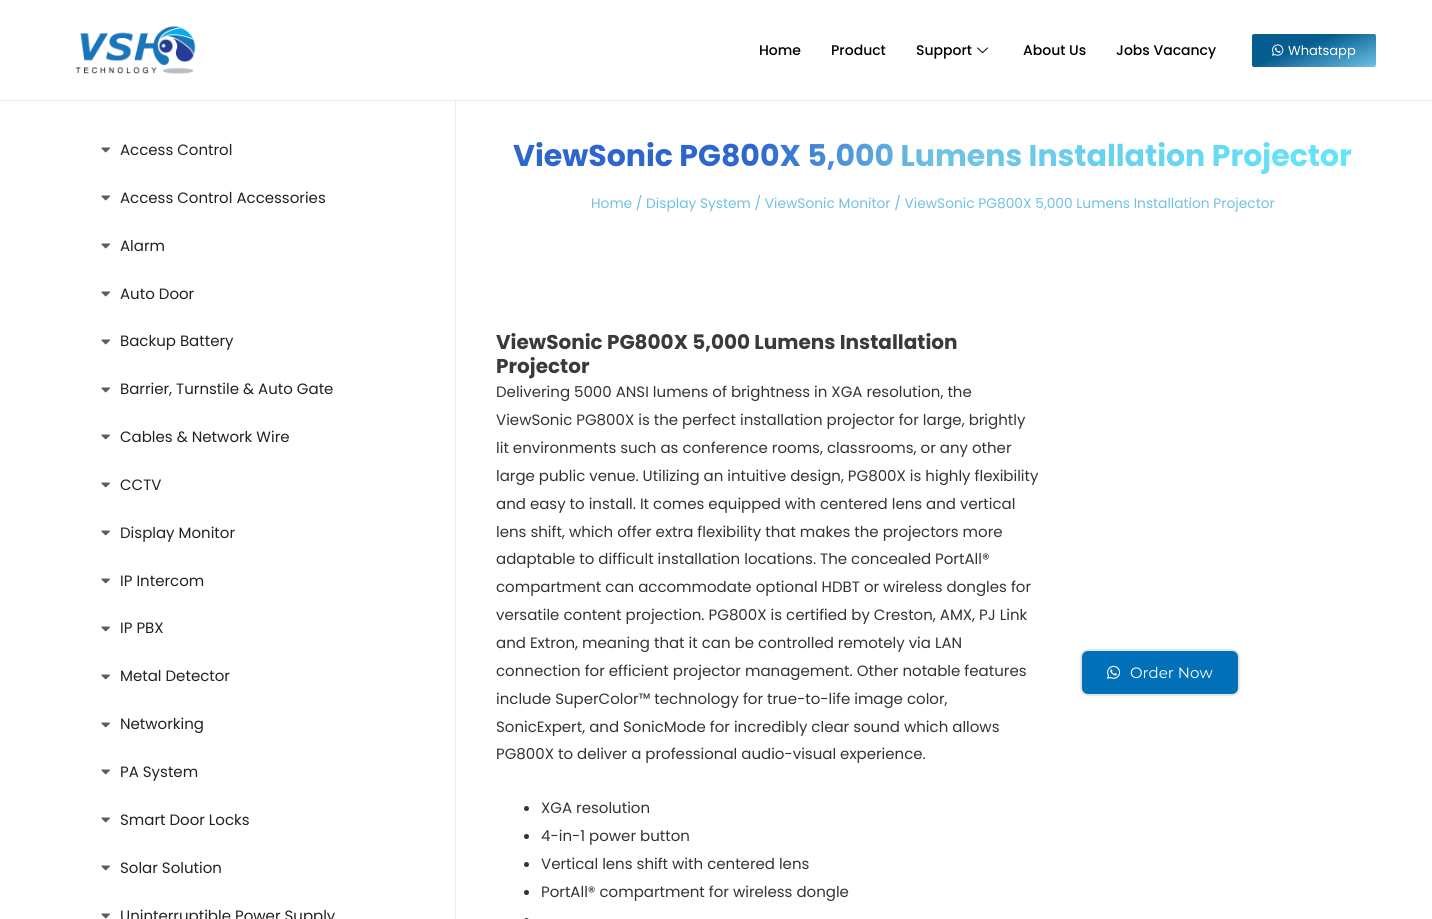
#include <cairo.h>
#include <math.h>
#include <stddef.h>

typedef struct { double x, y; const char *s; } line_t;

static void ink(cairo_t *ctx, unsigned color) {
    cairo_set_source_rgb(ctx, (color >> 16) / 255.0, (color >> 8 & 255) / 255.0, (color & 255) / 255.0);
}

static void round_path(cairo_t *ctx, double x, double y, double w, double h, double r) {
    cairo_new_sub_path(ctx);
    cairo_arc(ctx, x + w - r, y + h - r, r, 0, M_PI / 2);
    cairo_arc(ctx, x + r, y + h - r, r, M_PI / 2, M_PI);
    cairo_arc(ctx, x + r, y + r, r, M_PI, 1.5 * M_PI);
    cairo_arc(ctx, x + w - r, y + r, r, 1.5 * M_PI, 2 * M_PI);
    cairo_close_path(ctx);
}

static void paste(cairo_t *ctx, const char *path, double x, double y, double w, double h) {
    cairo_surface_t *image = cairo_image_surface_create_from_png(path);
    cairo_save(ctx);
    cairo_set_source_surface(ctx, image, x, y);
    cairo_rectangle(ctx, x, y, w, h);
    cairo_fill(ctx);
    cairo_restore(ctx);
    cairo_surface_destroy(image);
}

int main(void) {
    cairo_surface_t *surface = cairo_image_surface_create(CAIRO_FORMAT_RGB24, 1432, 919);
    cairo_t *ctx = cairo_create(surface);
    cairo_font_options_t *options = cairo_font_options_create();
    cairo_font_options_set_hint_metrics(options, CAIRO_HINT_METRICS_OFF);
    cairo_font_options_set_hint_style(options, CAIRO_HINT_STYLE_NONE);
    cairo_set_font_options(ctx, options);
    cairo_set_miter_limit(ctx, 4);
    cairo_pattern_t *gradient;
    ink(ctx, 0xFFFFFF);
    cairo_paint(ctx);
    paste(ctx, "media/1.png", 75, 26, 121, 48);
    cairo_select_font_face(ctx, "Poppins Medium", CAIRO_FONT_SLANT_NORMAL, CAIRO_FONT_WEIGHT_NORMAL);
    cairo_set_font_size(ctx, 14);
    ink(ctx, 0x000000);
    {
        static const line_t items[] = {
            {759, 55, "Home"},
            {831, 55, "Product"},
            {916, 55, "Support"},
        };
        for (size_t i = 0; i < sizeof items / sizeof *items; i++) {
            cairo_move_to(ctx, items[i].x, items[i].y);
            cairo_show_text(ctx, items[i].s);
        }
    }
    paste(ctx, "media/2.png", 977, 47, 11, 7);
    cairo_move_to(ctx, 1023, 55);
    cairo_show_text(ctx, "About Us");
    cairo_move_to(ctx, 1116, 55);
    cairo_show_text(ctx, "Jobs Vacancy");
    gradient = cairo_pattern_create_linear(1301, 16, 1327, 85);
    cairo_pattern_add_color_stop_rgba(gradient, 0.39, 0.016, 0.361, 0.561, 1);
    cairo_pattern_add_color_stop_rgba(gradient, 1, 0.431, 0.757, 0.894, 1);
    cairo_set_source(ctx, gradient);
    cairo_pattern_destroy(gradient);
    round_path(ctx, 1252, 34, 124, 33, 2);
    cairo_fill(ctx);
    paste(ctx, "media/3.png", 1272, 44, 12, 12);
    cairo_select_font_face(ctx, "Poppins", CAIRO_FONT_SLANT_NORMAL, CAIRO_FONT_WEIGHT_NORMAL);
    cairo_set_font_size(ctx, 13);
    ink(ctx, 0xFFFFFF);
    cairo_move_to(ctx, 1288, 55);
    cairo_show_text(ctx, "Whatsapp");
    ink(ctx, 0xEAEAEA);
    cairo_rectangle(ctx, 0, 100, 1432, 1);
    cairo_fill(ctx);
    ink(ctx, 0xEDEDED);
    cairo_rectangle(ctx, 455, 101, 1, 818);
    cairo_fill(ctx);
    paste(ctx, "media/4.png", 101, 147, 9, 6);
    cairo_set_font_size(ctx, 15);
    ink(ctx, 0x1F2124);
    cairo_move_to(ctx, 120, 155);
    cairo_show_text(ctx, "Access Control");
    paste(ctx, "media/4.png", 101, 195, 9, 6);
    cairo_move_to(ctx, 120, 203);
    cairo_show_text(ctx, "Access Control Accessories");
    paste(ctx, "media/4.png", 101, 243, 9, 6);
    cairo_move_to(ctx, 120, 251);
    cairo_show_text(ctx, "Alarm");
    paste(ctx, "media/4.png", 101, 291, 9, 6);
    cairo_move_to(ctx, 120, 299);
    cairo_show_text(ctx, "Auto Door");
    paste(ctx, "media/4.png", 101, 339, 9, 6);
    cairo_move_to(ctx, 120, 346);
    cairo_show_text(ctx, "Backup Battery");
    paste(ctx, "media/4.png", 101, 387, 9, 6);
    cairo_move_to(ctx, 120, 394);
    cairo_show_text(ctx, "Barrier, Turnstile & Auto Gate");
    paste(ctx, "media/4.png", 101, 434, 9, 6);
    cairo_move_to(ctx, 120, 442);
    cairo_show_text(ctx, "Cables & Network Wire");
    paste(ctx, "media/4.png", 101, 482, 9, 6);
    cairo_move_to(ctx, 120, 490);
    cairo_show_text(ctx, "CCTV");
    paste(ctx, "media/4.png", 101, 530, 9, 6);
    cairo_move_to(ctx, 120, 538);
    cairo_show_text(ctx, "Display Monitor");
    paste(ctx, "media/4.png", 101, 578, 9, 6);
    cairo_move_to(ctx, 120, 586);
    cairo_show_text(ctx, "IP Intercom");
    paste(ctx, "media/4.png", 101, 626, 9, 6);
    cairo_move_to(ctx, 120, 633);
    cairo_show_text(ctx, "IP PBX");
    paste(ctx, "media/4.png", 101, 674, 9, 6);
    cairo_move_to(ctx, 120, 681);
    cairo_show_text(ctx, "Metal Detector");
    paste(ctx, "media/4.png", 101, 722, 9, 6);
    cairo_move_to(ctx, 120, 729);
    cairo_show_text(ctx, "Networking");
    paste(ctx, "media/4.png", 101, 769, 9, 6);
    cairo_move_to(ctx, 120, 777);
    cairo_show_text(ctx, "PA System");
    paste(ctx, "media/4.png", 101, 817, 9, 6);
    cairo_move_to(ctx, 120, 825);
    cairo_show_text(ctx, "Smart Door Locks");
    paste(ctx, "media/4.png", 101, 865, 9, 6);
    cairo_move_to(ctx, 120, 873);
    cairo_show_text(ctx, "Solar Solution");
    paste(ctx, "media/4.png", 101, 913, 9, 6);
    cairo_move_to(ctx, 120, 921);
    cairo_show_text(ctx, "Uninterruptible Power Supply");
    cairo_select_font_face(ctx, "Poppins", CAIRO_FONT_SLANT_NORMAL, CAIRO_FONT_WEIGHT_BOLD);
    cairo_set_font_size(ctx, 30);
    gradient = cairo_pattern_create_linear(476, 146, 1389, 146);
    cairo_pattern_add_color_stop_rgba(gradient, 0.3, 0.176, 0.4, 0.8, 1);
    cairo_pattern_add_color_stop_rgba(gradient, 0.5, 0.431, 0.757, 0.894, 1);
    cairo_pattern_add_color_stop_rgba(gradient, 1, 0.388, 0.914, 1, 1);
    cairo_set_source(ctx, gradient);
    cairo_pattern_destroy(gradient);
    cairo_move_to(ctx, 513, 166);
    cairo_show_text(ctx, "ViewSonic PG800X 5,000 Lumens Installation Projector");
    cairo_select_font_face(ctx, "Poppins", CAIRO_FONT_SLANT_NORMAL, CAIRO_FONT_WEIGHT_NORMAL);
    cairo_set_font_size(ctx, 13.8);
    ink(ctx, 0x6EC1E4);
    cairo_move_to(ctx, 591, 208);
    cairo_show_text(ctx, "Home / Display System / ViewSonic Monitor / ViewSonic PG800X 5,000 Lumens Installation Projector");
    cairo_select_font_face(ctx, "Poppins", CAIRO_FONT_SLANT_NORMAL, CAIRO_FONT_WEIGHT_BOLD);
    cairo_set_font_size(ctx, 20);
    ink(ctx, 0x3A3A3A);
    cairo_move_to(ctx, 496, 349);
    cairo_show_text(ctx, "ViewSonic PG800X 5,000 Lumens Installation");
    cairo_move_to(ctx, 496, 373);
    cairo_show_text(ctx, "Projector");
    cairo_select_font_face(ctx, "Poppins", CAIRO_FONT_SLANT_NORMAL, CAIRO_FONT_WEIGHT_NORMAL);
    cairo_set_font_size(ctx, 15);
    ink(ctx, 0x333333);
    {
        static const line_t items[] = {
            {496, 397, "Delivering 5000 ANSI lumens of brightness in XGA resolution, the"},
            {496, 425, "ViewSonic PG800X is the perfect installation projector for large, brightly"},
            {496, 453, "lit environments such as conference rooms, classrooms, or any other"},
            {496, 481, "large public venue. Utilizing an intuitive design, PG800X is highly flexibility"},
            {496, 509, "and easy to install. It comes equipped with centered lens and vertical"},
            {496, 537, "lens shift, which offer extra flexibility that makes the projectors more"},
            {496, 564, "adaptable to difficult installation locations. The concealed PortAll®"},
            {496, 592, "compartment can accommodate optional HDBT or wireless dongles for"},
            {496, 620, "versatile content projection. PG800X is certified by Creston, AMX, PJ Link"},
            {496, 648, "and Extron, meaning that it can be controlled remotely via LAN"},
            {496, 676, "connection for efficient projector management. Other notable features"},
            {496, 704, "include SuperColor™ technology for true-to-life image color,"},
            {496, 732, "SonicExpert, and SonicMode for incredibly clear sound which allows"},
            {496, 759, "PG800X to deliver a professional audio-visual experience."},
        };
        for (size_t i = 0; i < sizeof items / sizeof *items; i++) {
            cairo_move_to(ctx, items[i].x, items[i].y);
            cairo_show_text(ctx, items[i].s);
        }
    }
    cairo_new_path(ctx);
    cairo_arc(ctx, 526.5, 808.5, 2.5, 0, 2 * M_PI);
    cairo_fill(ctx);
    cairo_move_to(ctx, 541, 813);
    cairo_show_text(ctx, "XGA resolution");
    cairo_new_path(ctx);
    cairo_arc(ctx, 526.5, 836.5, 2.5, 0, 2 * M_PI);
    cairo_fill(ctx);
    cairo_move_to(ctx, 541, 841);
    cairo_show_text(ctx, "4-in-1 power button");
    cairo_new_path(ctx);
    cairo_arc(ctx, 526.5, 864.5, 2.5, 0, 2 * M_PI);
    cairo_fill(ctx);
    cairo_move_to(ctx, 541, 869);
    cairo_show_text(ctx, "Vertical lens shift with centered lens");
    cairo_new_path(ctx);
    cairo_arc(ctx, 526.5, 892.5, 2.5, 0, 2 * M_PI);
    cairo_fill(ctx);
    cairo_move_to(ctx, 541, 897);
    cairo_show_text(ctx, "PortAll® compartment for wireless dongle");
    round_path(ctx, 524, 918, 5, 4, 2.5);
    cairo_fill(ctx);
    ink(ctx, 0x0170B9);
    round_path(ctx, 1081, 650, 158, 45, 7);
    cairo_fill_preserve(ctx);
    ink(ctx, 0xE7E7E7);
    cairo_stroke(ctx);
    paste(ctx, "media/5.png", 1107, 665, 14, 14);
    cairo_select_font_face(ctx, "Montserrat", CAIRO_FONT_SLANT_NORMAL, CAIRO_FONT_WEIGHT_NORMAL);
    ink(ctx, 0xFFFFFF);
    cairo_move_to(ctx, 1130, 678);
    cairo_show_text(ctx, "Order Now");
    cairo_surface_write_to_png(surface, "image.png");
    cairo_font_options_destroy(options);
    cairo_destroy(ctx);
    cairo_surface_destroy(surface);
    return 0;
}
